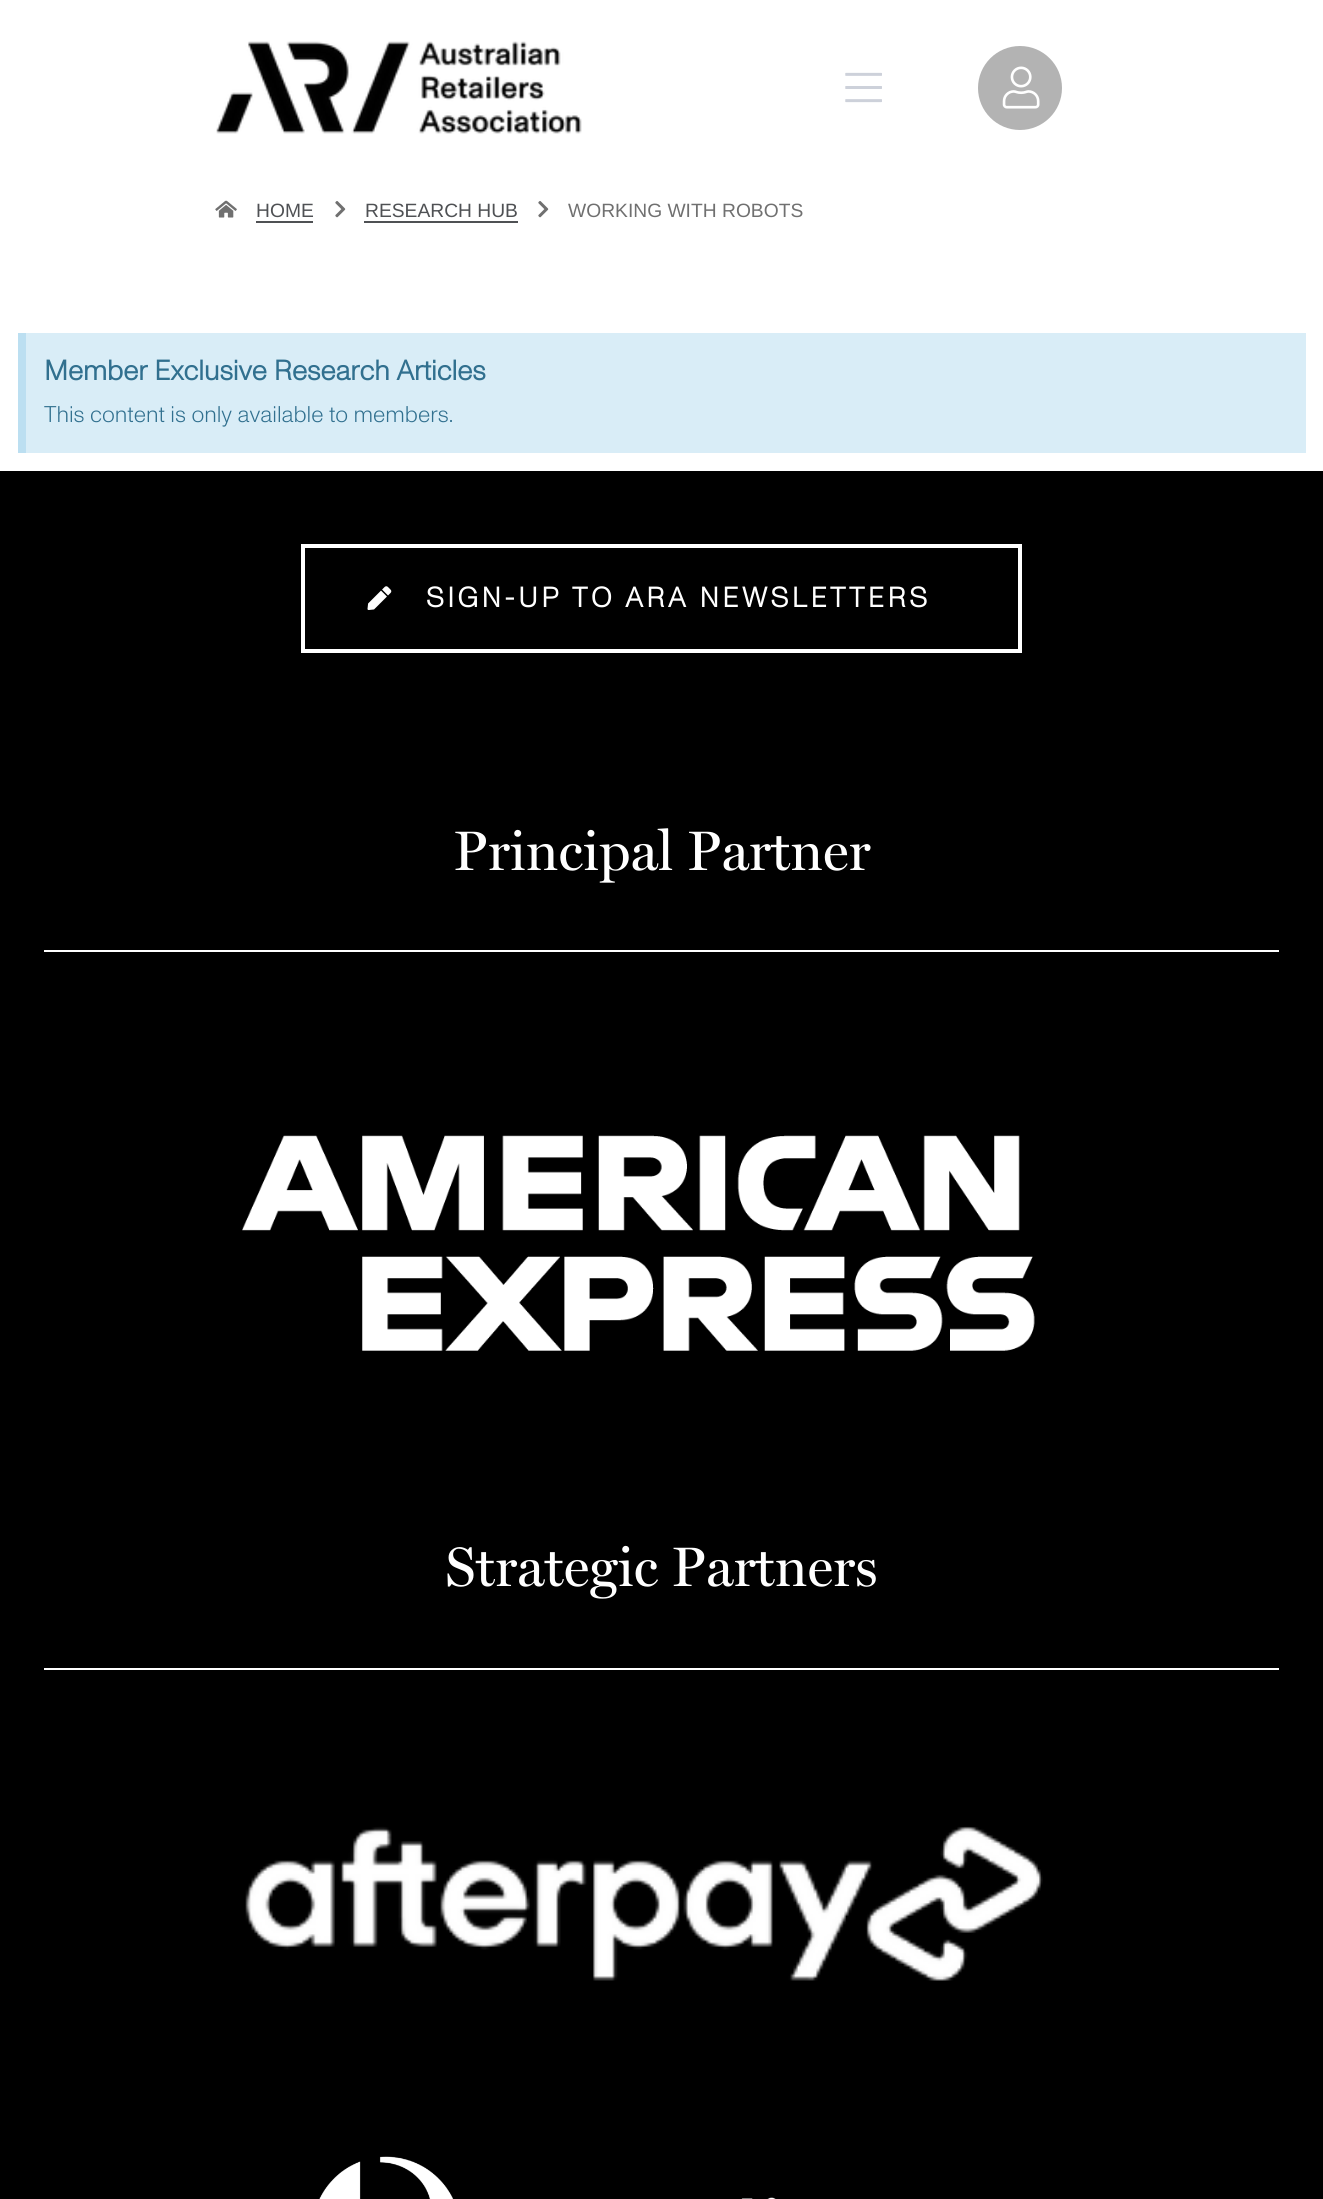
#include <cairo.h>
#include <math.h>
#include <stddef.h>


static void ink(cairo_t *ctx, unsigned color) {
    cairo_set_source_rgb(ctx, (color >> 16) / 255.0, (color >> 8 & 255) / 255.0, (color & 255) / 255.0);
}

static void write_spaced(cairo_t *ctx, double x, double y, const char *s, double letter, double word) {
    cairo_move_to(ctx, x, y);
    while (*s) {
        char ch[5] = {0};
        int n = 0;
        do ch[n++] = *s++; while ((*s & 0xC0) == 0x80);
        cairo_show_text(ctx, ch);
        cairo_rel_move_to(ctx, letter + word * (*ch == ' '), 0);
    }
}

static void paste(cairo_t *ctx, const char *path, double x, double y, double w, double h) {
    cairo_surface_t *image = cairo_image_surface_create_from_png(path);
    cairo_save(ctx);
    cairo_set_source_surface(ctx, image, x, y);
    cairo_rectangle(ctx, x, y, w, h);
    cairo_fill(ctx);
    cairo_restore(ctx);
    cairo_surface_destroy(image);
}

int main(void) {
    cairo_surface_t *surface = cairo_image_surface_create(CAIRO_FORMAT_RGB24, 1323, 2199);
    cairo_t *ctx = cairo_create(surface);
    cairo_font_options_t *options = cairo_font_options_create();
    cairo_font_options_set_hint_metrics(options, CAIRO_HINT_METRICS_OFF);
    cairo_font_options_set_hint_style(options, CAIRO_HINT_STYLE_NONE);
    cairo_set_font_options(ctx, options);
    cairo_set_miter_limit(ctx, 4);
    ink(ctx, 0xFFFFFF);
    cairo_paint(ctx);
    paste(ctx, "media/1.png", 216, 41, 366, 93);
    paste(ctx, "media/2.png", 845, 72, 37, 31);
    ink(ctx, 0xB3B3B3);
    cairo_arc(ctx, 1020, 88, 42, 0, 2 * M_PI);
    cairo_fill(ctx);
    paste(ctx, "media/3.png", 1002, 66, 38, 43);
    paste(ctx, "media/4.png", 215, 200, 22, 18);
    cairo_select_font_face(ctx, "Liberation Sans", CAIRO_FONT_SLANT_NORMAL, CAIRO_FONT_WEIGHT_NORMAL);
    cairo_set_font_size(ctx, 19.25);
    ink(ctx, 0x4F5154);
    cairo_move_to(ctx, 256, 217);
    cairo_show_text(ctx, "HOME");
    cairo_rectangle(ctx, 256, 221, 57, 2);
    cairo_fill(ctx);
    paste(ctx, "media/5.png", 335, 201, 11, 17);
    cairo_move_to(ctx, 365, 217);
    cairo_show_text(ctx, "RESEARCH HUB");
    cairo_rectangle(ctx, 364, 221, 154, 2);
    cairo_fill(ctx);
    paste(ctx, "media/5.png", 538, 201, 11, 17);
    ink(ctx, 0x707070);
    cairo_move_to(ctx, 568, 217);
    cairo_show_text(ctx, "WORKING WITH ROBOTS");
    ink(ctx, 0xD9EDF7);
    cairo_rectangle(ctx, 26, 333, 1280, 120);
    cairo_fill(ctx);
    ink(ctx, 0xBCDFF1);
    cairo_rectangle(ctx, 18, 333, 8, 120);
    cairo_fill(ctx);
    cairo_select_font_face(ctx, "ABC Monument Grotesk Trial", CAIRO_FONT_SLANT_NORMAL, CAIRO_FONT_WEIGHT_BOLD);
    cairo_set_font_size(ctx, 28);
    ink(ctx, 0x31708F);
    cairo_move_to(ctx, 44, 380);
    cairo_show_text(ctx, "Member Exclusive Research Articles");
    cairo_select_font_face(ctx, "ABC Monument Grotesk Trial Light", CAIRO_FONT_SLANT_NORMAL, CAIRO_FONT_WEIGHT_NORMAL);
    cairo_set_font_size(ctx, 22.75);
    cairo_move_to(ctx, 44, 422);
    cairo_show_text(ctx, "This content is only available to members.");
    ink(ctx, 0x000000);
    cairo_rectangle(ctx, 0, 471, 1323, 1728);
    cairo_fill(ctx);
    cairo_rectangle(ctx, 303, 546, 717, 105);
    ink(ctx, 0xFFFFFF);
    cairo_set_line_width(ctx, 4);
    cairo_stroke(ctx);
    paste(ctx, "media/6.png", 367, 586, 25, 24);
    cairo_select_font_face(ctx, "ABC Monument Grotesk Trial", CAIRO_FONT_SLANT_NORMAL, CAIRO_FONT_WEIGHT_BOLD);
    cairo_set_font_size(ctx, 28);
    write_spaced(ctx, 426, 607, "SIGN-UP TO ARA NEWSLETTERS", 3.5, 0);
    cairo_select_font_face(ctx, "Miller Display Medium", CAIRO_FONT_SLANT_NORMAL, CAIRO_FONT_WEIGHT_NORMAL);
    cairo_set_font_size(ctx, 56);
    cairo_move_to(ctx, 453, 870);
    cairo_show_text(ctx, "Principal Partner");
    cairo_rectangle(ctx, 44, 950, 1235, 2);
    cairo_fill(ctx);
    paste(ctx, "media/7.png", 242, 1135, 793, 216);
    cairo_move_to(ctx, 445, 1586);
    cairo_show_text(ctx, "Strategic Partners");
    cairo_rectangle(ctx, 44, 1668, 1235, 2);
    cairo_fill(ctx);
    paste(ctx, "media/8.png", 245, 1826, 798, 155);
    paste(ctx, "media/9.png", 319, 2156, 457, 43);
    cairo_surface_write_to_png(surface, "image.png");
    cairo_font_options_destroy(options);
    cairo_destroy(ctx);
    cairo_surface_destroy(surface);
    return 0;
}
